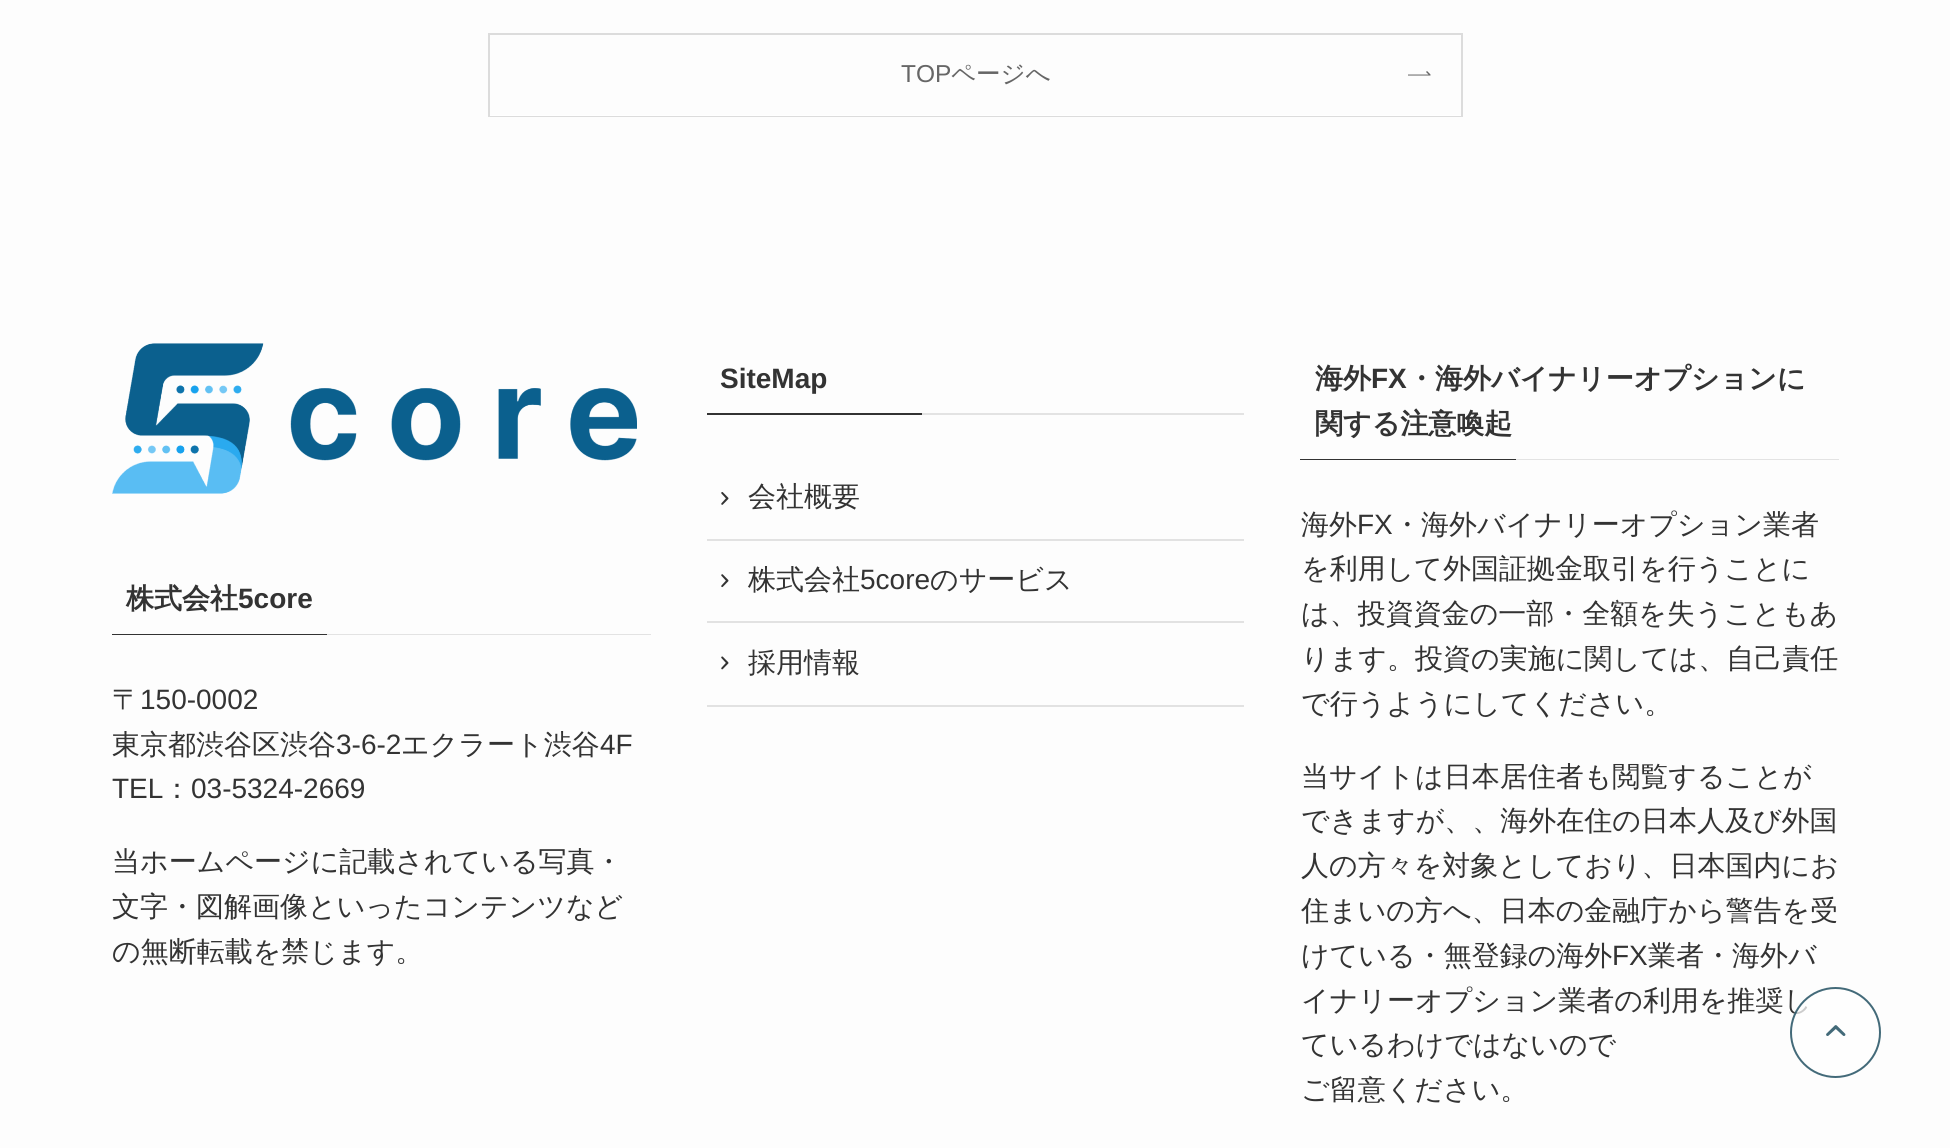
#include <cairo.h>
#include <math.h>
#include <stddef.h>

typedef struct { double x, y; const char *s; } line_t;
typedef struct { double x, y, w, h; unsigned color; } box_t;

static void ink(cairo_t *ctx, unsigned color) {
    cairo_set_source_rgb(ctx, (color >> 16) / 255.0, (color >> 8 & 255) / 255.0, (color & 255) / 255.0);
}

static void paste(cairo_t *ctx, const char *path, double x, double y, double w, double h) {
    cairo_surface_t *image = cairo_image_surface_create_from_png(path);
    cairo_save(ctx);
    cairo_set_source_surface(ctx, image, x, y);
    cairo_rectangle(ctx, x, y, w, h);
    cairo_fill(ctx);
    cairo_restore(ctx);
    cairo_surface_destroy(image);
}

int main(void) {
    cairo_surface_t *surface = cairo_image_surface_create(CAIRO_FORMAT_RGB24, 1950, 1148);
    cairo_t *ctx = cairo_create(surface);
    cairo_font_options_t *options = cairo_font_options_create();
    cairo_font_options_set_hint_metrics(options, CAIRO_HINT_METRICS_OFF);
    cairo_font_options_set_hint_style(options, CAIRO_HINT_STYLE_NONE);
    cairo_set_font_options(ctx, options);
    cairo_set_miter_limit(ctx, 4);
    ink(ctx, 0xFDFDFD);
    cairo_paint(ctx);
    cairo_rectangle(ctx, 489, 34, 973, 82);
    ink(ctx, 0xDCDCDC);
    cairo_stroke(ctx);
    ink(ctx, 0xFFFFFF);
    cairo_rectangle(ctx, 490, 115, 971, 1);
    cairo_fill(ctx);
    cairo_select_font_face(ctx, "Liberation Sans", CAIRO_FONT_SLANT_NORMAL, CAIRO_FONT_WEIGHT_NORMAL);
    cairo_set_font_size(ctx, 24.5);
    ink(ctx, 0x666666);
    cairo_move_to(ctx, 901, 82);
    cairo_show_text(ctx, "TOP");
    cairo_select_font_face(ctx, "WenQuanYi Zen Hei Medium", CAIRO_FONT_SLANT_NORMAL, CAIRO_FONT_WEIGHT_NORMAL);
    cairo_move_to(ctx, 951, 82);
    cairo_show_text(ctx, "ページへ");
    cairo_new_path(ctx);
    cairo_move_to(ctx, 1430.5, 74.5);
    cairo_line_to(ctx, 1427, 71);
    cairo_line_to(ctx, 1426, 72);
    cairo_line_to(ctx, 1428.5, 74.5);
    cairo_line_to(ctx, 1408, 74.5);
    cairo_line_to(ctx, 1408, 75.5);
    cairo_line_to(ctx, 1430.5, 75.5);
    cairo_close_path(ctx);
    cairo_fill(ctx);
    cairo_select_font_face(ctx, "Liberation Sans", CAIRO_FONT_SLANT_NORMAL, CAIRO_FONT_WEIGHT_BOLD);
    cairo_set_font_size(ctx, 28);
    ink(ctx, 0x333333);
    cairo_move_to(ctx, 720, 388);
    cairo_show_text(ctx, "SiteMap");
    {
        static const box_t items[] = {
            {707, 413, 215, 2, 0x333333},
            {922, 413, 322, 2, 0xE3E3E3},
            {707, 539, 537, 2, 0xE2E2E2},
        };
        for (size_t i = 0; i < sizeof items / sizeof *items; i++) {
            ink(ctx, items[i].color);
            cairo_rectangle(ctx, items[i].x, items[i].y, items[i].w, items[i].h);
            cairo_fill(ctx);
        }
    }
    paste(ctx, "media/1.png", 721, 492, 8, 13);
    cairo_select_font_face(ctx, "WenQuanYi Zen Hei Medium", CAIRO_FONT_SLANT_NORMAL, CAIRO_FONT_WEIGHT_NORMAL);
    ink(ctx, 0x333333);
    cairo_move_to(ctx, 748, 506);
    cairo_show_text(ctx, "会社概要");
    ink(ctx, 0xE2E2E2);
    cairo_rectangle(ctx, 707, 621, 537, 2);
    cairo_fill(ctx);
    paste(ctx, "media/2.png", 721, 574, 8, 14);
    ink(ctx, 0x333333);
    cairo_move_to(ctx, 748, 589);
    cairo_show_text(ctx, "株式会社");
    cairo_select_font_face(ctx, "Liberation Sans", CAIRO_FONT_SLANT_NORMAL, CAIRO_FONT_WEIGHT_NORMAL);
    cairo_move_to(ctx, 860, 589);
    cairo_show_text(ctx, "5core");
    cairo_select_font_face(ctx, "WenQuanYi Zen Hei Medium", CAIRO_FONT_SLANT_NORMAL, CAIRO_FONT_WEIGHT_NORMAL);
    cairo_move_to(ctx, 930, 589);
    cairo_show_text(ctx, "のサービス");
    ink(ctx, 0xE2E2E2);
    cairo_rectangle(ctx, 707, 705, 537, 2);
    cairo_fill(ctx);
    paste(ctx, "media/3.png", 721, 656, 8, 14);
    ink(ctx, 0x333333);
    cairo_move_to(ctx, 748, 672);
    cairo_show_text(ctx, "採用情報");
    cairo_select_font_face(ctx, "WenQuanYi Zen Hei", CAIRO_FONT_SLANT_NORMAL, CAIRO_FONT_WEIGHT_BOLD);
    cairo_move_to(ctx, 1315, 388);
    cairo_show_text(ctx, "海外");
    cairo_select_font_face(ctx, "Liberation Sans", CAIRO_FONT_SLANT_NORMAL, CAIRO_FONT_WEIGHT_BOLD);
    cairo_move_to(ctx, 1371, 388);
    cairo_show_text(ctx, "FX");
    cairo_select_font_face(ctx, "WenQuanYi Zen Hei", CAIRO_FONT_SLANT_NORMAL, CAIRO_FONT_WEIGHT_BOLD);
    cairo_move_to(ctx, 1407, 388);
    cairo_show_text(ctx, "・海外バイナリーオプションに");
    cairo_move_to(ctx, 1315, 433);
    cairo_show_text(ctx, "関する注意喚起");
    cairo_rectangle(ctx, 1300, 459, 216, 1);
    cairo_fill(ctx);
    ink(ctx, 0xE3E3E3);
    cairo_rectangle(ctx, 1516, 459, 323, 1);
    cairo_fill(ctx);
    cairo_select_font_face(ctx, "WenQuanYi Zen Hei Medium", CAIRO_FONT_SLANT_NORMAL, CAIRO_FONT_WEIGHT_NORMAL);
    ink(ctx, 0x333333);
    cairo_move_to(ctx, 1301, 534);
    cairo_show_text(ctx, "海外");
    cairo_select_font_face(ctx, "Liberation Sans", CAIRO_FONT_SLANT_NORMAL, CAIRO_FONT_WEIGHT_NORMAL);
    cairo_move_to(ctx, 1357, 534);
    cairo_show_text(ctx, "FX");
    cairo_select_font_face(ctx, "WenQuanYi Zen Hei Medium", CAIRO_FONT_SLANT_NORMAL, CAIRO_FONT_WEIGHT_NORMAL);
    {
        static const line_t items[] = {
            {1393, 534, "・海外バイナリーオプション業者"},
            {1301, 578, "を利用して外国証拠金取引を行うことに"},
            {1301, 623, "は、投資資金の一部・全額を失うこともあ"},
            {1301, 668, "ります。投資の実施に関しては、自己責任"},
            {1301, 713, "で行うようにしてください。"},
            {1301, 786, "当サイトは日本居住者も閲覧することが"},
            {1301, 830, "できますが、、海外在住の日本人及び外国"},
            {1301, 875, "人の方々を対象としており、日本国内にお"},
            {1301, 920, "住まいの方へ、日本の金融庁から警告を受"},
            {1301, 965, "けている・無登録の海外"},
        };
        for (size_t i = 0; i < sizeof items / sizeof *items; i++) {
            cairo_move_to(ctx, items[i].x, items[i].y);
            cairo_show_text(ctx, items[i].s);
        }
    }
    cairo_select_font_face(ctx, "Liberation Sans", CAIRO_FONT_SLANT_NORMAL, CAIRO_FONT_WEIGHT_NORMAL);
    cairo_move_to(ctx, 1612, 965);
    cairo_show_text(ctx, "FX");
    cairo_select_font_face(ctx, "WenQuanYi Zen Hei Medium", CAIRO_FONT_SLANT_NORMAL, CAIRO_FONT_WEIGHT_NORMAL);
    {
        static const line_t items[] = {
            {1648, 965, "業者・海外バ"},
            {1301, 1010, "イナリーオプション業者の利用を推奨し"},
            {1301, 1054, "ているわけではないので"},
            {1301, 1099, "ご留意ください。"},
        };
        for (size_t i = 0; i < sizeof items / sizeof *items; i++) {
            cairo_move_to(ctx, items[i].x, items[i].y);
            cairo_show_text(ctx, items[i].s);
        }
    }
    paste(ctx, "media/4.png", 112, 343, 525, 151);
    cairo_select_font_face(ctx, "WenQuanYi Zen Hei", CAIRO_FONT_SLANT_NORMAL, CAIRO_FONT_WEIGHT_BOLD);
    cairo_move_to(ctx, 126, 608);
    cairo_show_text(ctx, "株式会社");
    cairo_select_font_face(ctx, "Liberation Sans", CAIRO_FONT_SLANT_NORMAL, CAIRO_FONT_WEIGHT_BOLD);
    cairo_move_to(ctx, 238, 608);
    cairo_show_text(ctx, "5core");
    cairo_rectangle(ctx, 112, 634, 215, 1);
    cairo_fill(ctx);
    ink(ctx, 0xE3E3E3);
    cairo_rectangle(ctx, 327, 634, 324, 1);
    cairo_fill(ctx);
    cairo_select_font_face(ctx, "WenQuanYi Zen Hei Medium", CAIRO_FONT_SLANT_NORMAL, CAIRO_FONT_WEIGHT_NORMAL);
    ink(ctx, 0x333333);
    cairo_move_to(ctx, 112, 709);
    cairo_show_text(ctx, "〒");
    cairo_select_font_face(ctx, "Liberation Sans", CAIRO_FONT_SLANT_NORMAL, CAIRO_FONT_WEIGHT_NORMAL);
    cairo_move_to(ctx, 140, 709);
    cairo_show_text(ctx, "150-0002");
    cairo_select_font_face(ctx, "WenQuanYi Zen Hei Medium", CAIRO_FONT_SLANT_NORMAL, CAIRO_FONT_WEIGHT_NORMAL);
    cairo_move_to(ctx, 112, 754);
    cairo_show_text(ctx, "東京都渋谷区渋谷");
    cairo_select_font_face(ctx, "Liberation Sans", CAIRO_FONT_SLANT_NORMAL, CAIRO_FONT_WEIGHT_NORMAL);
    cairo_move_to(ctx, 336, 754);
    cairo_show_text(ctx, "3-6-2");
    cairo_select_font_face(ctx, "WenQuanYi Zen Hei Medium", CAIRO_FONT_SLANT_NORMAL, CAIRO_FONT_WEIGHT_NORMAL);
    cairo_move_to(ctx, 401, 754);
    cairo_show_text(ctx, "エクラート渋谷");
    cairo_select_font_face(ctx, "Liberation Sans", CAIRO_FONT_SLANT_NORMAL, CAIRO_FONT_WEIGHT_NORMAL);
    cairo_move_to(ctx, 600, 754);
    cairo_show_text(ctx, "4F");
    cairo_move_to(ctx, 112, 798);
    cairo_show_text(ctx, "TEL");
    cairo_select_font_face(ctx, "WenQuanYi Zen Hei Medium", CAIRO_FONT_SLANT_NORMAL, CAIRO_FONT_WEIGHT_NORMAL);
    cairo_move_to(ctx, 163, 798);
    cairo_show_text(ctx, "：");
    cairo_select_font_face(ctx, "Liberation Sans", CAIRO_FONT_SLANT_NORMAL, CAIRO_FONT_WEIGHT_NORMAL);
    cairo_move_to(ctx, 191, 798);
    cairo_show_text(ctx, "03-5324-2669");
    cairo_select_font_face(ctx, "WenQuanYi Zen Hei Medium", CAIRO_FONT_SLANT_NORMAL, CAIRO_FONT_WEIGHT_NORMAL);
    {
        static const line_t items[] = {
            {112, 871, "当ホームページに記載されている写真・"},
            {112, 916, "文字・図解画像といったコンテンツなど"},
            {112, 961, "の無断転載を禁じます。"},
        };
        for (size_t i = 0; i < sizeof items / sizeof *items; i++) {
            cairo_move_to(ctx, items[i].x, items[i].y);
            cairo_show_text(ctx, items[i].s);
        }
    }
    cairo_set_source_rgba(ctx, 1, 1, 1, 0.75);
    cairo_new_path(ctx);
    cairo_arc(ctx, 1835.5, 1032.5, 45.5, 0, 2 * M_PI);
    cairo_fill(ctx);
    cairo_arc(ctx, 1835.5, 1032.5, 44.5, 0, 2 * M_PI);
    cairo_set_source_rgba(ctx, 0.016, 0.22, 0.298, 0.75);
    cairo_stroke(ctx);
    paste(ctx, "media/5.png", 1826, 1025, 20, 11);
    cairo_surface_write_to_png(surface, "image.png");
    cairo_font_options_destroy(options);
    cairo_destroy(ctx);
    cairo_surface_destroy(surface);
    return 0;
}
